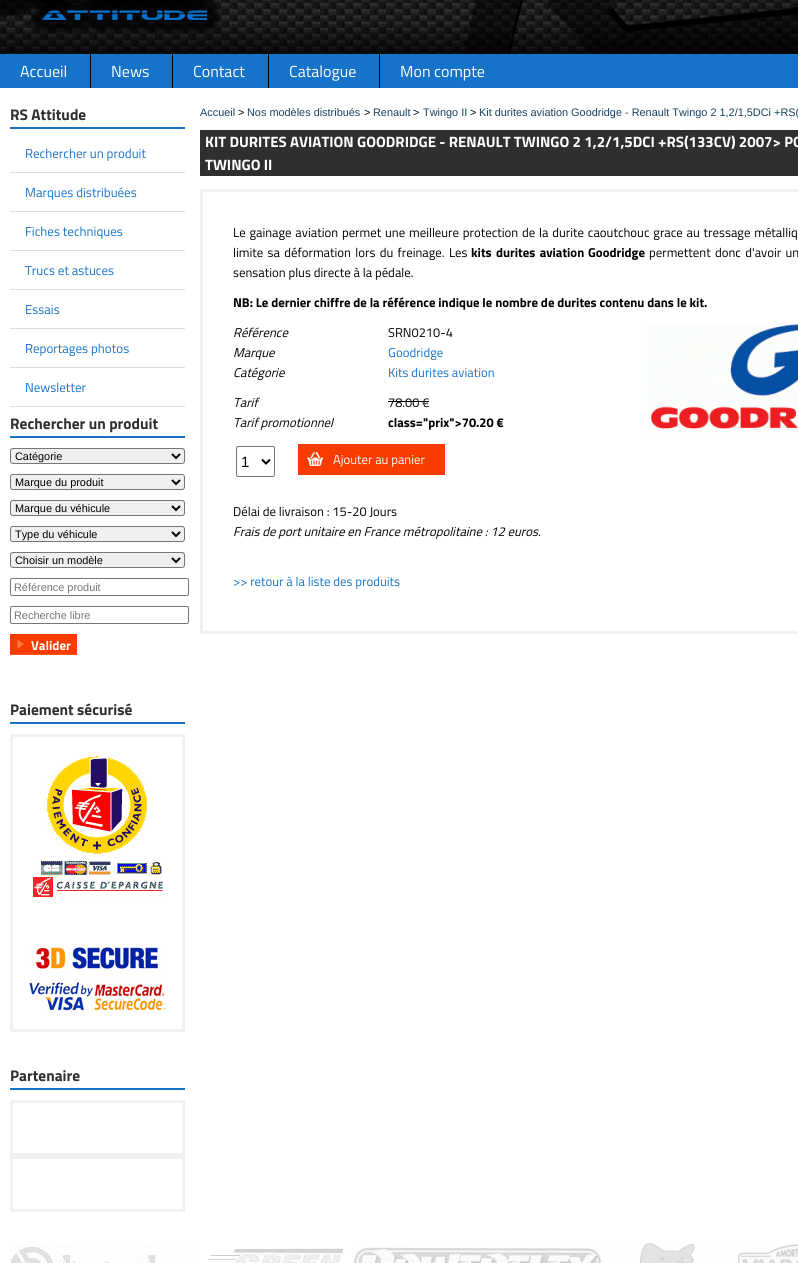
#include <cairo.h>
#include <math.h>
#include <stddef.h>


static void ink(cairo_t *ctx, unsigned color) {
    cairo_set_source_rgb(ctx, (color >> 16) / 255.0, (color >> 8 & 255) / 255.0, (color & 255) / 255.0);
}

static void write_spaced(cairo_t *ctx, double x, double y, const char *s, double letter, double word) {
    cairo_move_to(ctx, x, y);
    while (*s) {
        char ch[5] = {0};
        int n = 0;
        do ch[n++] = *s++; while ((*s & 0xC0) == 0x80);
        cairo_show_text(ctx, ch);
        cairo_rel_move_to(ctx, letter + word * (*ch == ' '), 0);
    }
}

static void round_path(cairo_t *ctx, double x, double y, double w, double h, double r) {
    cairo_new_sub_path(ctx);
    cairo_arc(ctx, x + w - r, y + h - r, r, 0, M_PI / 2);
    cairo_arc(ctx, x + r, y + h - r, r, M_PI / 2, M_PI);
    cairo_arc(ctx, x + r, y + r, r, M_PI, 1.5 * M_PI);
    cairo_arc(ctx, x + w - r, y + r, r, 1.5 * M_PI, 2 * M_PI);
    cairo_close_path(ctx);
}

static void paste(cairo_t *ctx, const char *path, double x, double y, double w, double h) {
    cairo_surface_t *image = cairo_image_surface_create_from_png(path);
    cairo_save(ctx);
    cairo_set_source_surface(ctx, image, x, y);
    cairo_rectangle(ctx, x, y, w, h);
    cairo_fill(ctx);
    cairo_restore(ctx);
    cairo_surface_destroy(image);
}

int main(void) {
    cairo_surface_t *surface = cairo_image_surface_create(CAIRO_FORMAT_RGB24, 798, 1263);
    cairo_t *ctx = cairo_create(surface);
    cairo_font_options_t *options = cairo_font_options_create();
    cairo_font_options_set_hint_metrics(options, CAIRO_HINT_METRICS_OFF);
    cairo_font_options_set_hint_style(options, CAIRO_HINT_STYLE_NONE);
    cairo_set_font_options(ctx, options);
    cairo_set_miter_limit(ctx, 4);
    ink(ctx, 0xFFFFFF);
    cairo_paint(ctx);
    paste(ctx, "media/1.png", 0, 0, 798, 54);
    paste(ctx, "media/2.png", 29, 0, 191, 33);
    ink(ctx, 0x1673CA);
    cairo_rectangle(ctx, 0, 54, 798, 34);
    cairo_fill(ctx);
    cairo_select_font_face(ctx, "Titillium Web", CAIRO_FONT_SLANT_NORMAL, CAIRO_FONT_WEIGHT_NORMAL);
    cairo_set_font_size(ctx, 16);
    ink(ctx, 0xFFFFFF);
    cairo_move_to(ctx, 20, 77);
    cairo_show_text(ctx, "Accueil");
    ink(ctx, 0x000000);
    cairo_rectangle(ctx, 90, 54, 1, 34);
    cairo_fill(ctx);
    ink(ctx, 0xFFFFFF);
    cairo_move_to(ctx, 111, 77);
    cairo_show_text(ctx, "News");
    ink(ctx, 0x000000);
    cairo_rectangle(ctx, 172, 54, 1, 34);
    cairo_fill(ctx);
    ink(ctx, 0xFFFFFF);
    cairo_move_to(ctx, 193, 77);
    cairo_show_text(ctx, "Contact");
    ink(ctx, 0x000000);
    cairo_rectangle(ctx, 268, 54, 1, 34);
    cairo_fill(ctx);
    ink(ctx, 0xFFFFFF);
    cairo_move_to(ctx, 289, 77);
    cairo_show_text(ctx, "Catalogue");
    ink(ctx, 0x000000);
    cairo_rectangle(ctx, 379, 54, 1, 34);
    cairo_fill(ctx);
    ink(ctx, 0xFFFFFF);
    cairo_move_to(ctx, 400, 77);
    cairo_show_text(ctx, "Mon compte");
    paste(ctx, "media/3.png", 10, 1243, 788, 20);
    ink(ctx, 0x1673CA);
    cairo_rectangle(ctx, 10, 127, 175, 2);
    cairo_fill(ctx);
    cairo_select_font_face(ctx, "Titillium Web", CAIRO_FONT_SLANT_NORMAL, CAIRO_FONT_WEIGHT_BOLD);
    cairo_set_font_size(ctx, 15.4);
    ink(ctx, 0x2F2F2F);
    cairo_move_to(ctx, 10, 120);
    cairo_show_text(ctx, "RS Attitude");
    ink(ctx, 0xDDDEE2);
    cairo_rectangle(ctx, 10, 172, 175, 1);
    cairo_fill(ctx);
    cairo_select_font_face(ctx, "Titillium Web", CAIRO_FONT_SLANT_NORMAL, CAIRO_FONT_WEIGHT_NORMAL);
    cairo_set_font_size(ctx, 13);
    ink(ctx, 0x1673CA);
    cairo_move_to(ctx, 25, 158);
    cairo_show_text(ctx, "Rechercher un produit");
    ink(ctx, 0xDDDEE2);
    cairo_rectangle(ctx, 10, 211, 175, 1);
    cairo_fill(ctx);
    ink(ctx, 0x1673CA);
    cairo_move_to(ctx, 25, 197);
    cairo_show_text(ctx, "Marques distribuées");
    ink(ctx, 0xDDDEE2);
    cairo_rectangle(ctx, 10, 250, 175, 1);
    cairo_fill(ctx);
    ink(ctx, 0x1673CA);
    cairo_move_to(ctx, 25, 236);
    cairo_show_text(ctx, "Fiches techniques");
    ink(ctx, 0xDDDEE2);
    cairo_rectangle(ctx, 10, 289, 175, 1);
    cairo_fill(ctx);
    ink(ctx, 0x1673CA);
    cairo_move_to(ctx, 25, 275);
    cairo_show_text(ctx, "Trucs et astuces");
    ink(ctx, 0xDDDEE2);
    cairo_rectangle(ctx, 10, 328, 175, 1);
    cairo_fill(ctx);
    ink(ctx, 0x1673CA);
    cairo_move_to(ctx, 25, 314);
    cairo_show_text(ctx, "Essais");
    ink(ctx, 0xDDDEE2);
    cairo_rectangle(ctx, 10, 367, 175, 1);
    cairo_fill(ctx);
    ink(ctx, 0x1673CA);
    cairo_move_to(ctx, 25, 353);
    cairo_show_text(ctx, "Reportages photos");
    ink(ctx, 0xDDDEE2);
    cairo_rectangle(ctx, 10, 406, 175, 1);
    cairo_fill(ctx);
    ink(ctx, 0x1673CA);
    cairo_move_to(ctx, 25, 392);
    cairo_show_text(ctx, "Newsletter");
    cairo_rectangle(ctx, 10, 436, 175, 2);
    cairo_fill(ctx);
    cairo_select_font_face(ctx, "Titillium Web", CAIRO_FONT_SLANT_NORMAL, CAIRO_FONT_WEIGHT_BOLD);
    cairo_set_font_size(ctx, 15.4);
    ink(ctx, 0x2F2F2F);
    cairo_move_to(ctx, 10, 429);
    cairo_show_text(ctx, "Rechercher un produit");
    ink(ctx, 0xEFEFEF);
    round_path(ctx, 10.5, 448.5, 174, 15, 2.5);
    cairo_fill_preserve(ctx);
    ink(ctx, 0x767676);
    cairo_set_line_width(ctx, 1);
    cairo_stroke(ctx);
    cairo_new_path(ctx);
    cairo_move_to(ctx, 172, 454);
    cairo_line_to(ctx, 176, 458);
    cairo_line_to(ctx, 180, 454);
    ink(ctx, 0x000000);
    cairo_set_line_width(ctx, 2);
    cairo_stroke(ctx);
    cairo_select_font_face(ctx, "Liberation Sans", CAIRO_FONT_SLANT_NORMAL, CAIRO_FONT_WEIGHT_NORMAL);
    cairo_set_font_size(ctx, 10.9);
    cairo_move_to(ctx, 15, 460);
    cairo_show_text(ctx, "Catégorie");
    ink(ctx, 0xEFEFEF);
    round_path(ctx, 10.5, 474.5, 174, 15, 2.5);
    cairo_fill_preserve(ctx);
    ink(ctx, 0x767676);
    cairo_set_line_width(ctx, 1);
    cairo_stroke(ctx);
    cairo_new_path(ctx);
    cairo_move_to(ctx, 172, 480);
    cairo_line_to(ctx, 176, 484);
    cairo_line_to(ctx, 180, 480);
    ink(ctx, 0x000000);
    cairo_set_line_width(ctx, 2);
    cairo_stroke(ctx);
    cairo_move_to(ctx, 15, 486);
    cairo_show_text(ctx, "Marque du produit");
    ink(ctx, 0xEFEFEF);
    round_path(ctx, 10.5, 500.5, 174, 15, 2.5);
    cairo_fill_preserve(ctx);
    ink(ctx, 0x767676);
    cairo_set_line_width(ctx, 1);
    cairo_stroke(ctx);
    cairo_new_path(ctx);
    cairo_move_to(ctx, 172, 506);
    cairo_line_to(ctx, 176, 510);
    cairo_line_to(ctx, 180, 506);
    ink(ctx, 0x000000);
    cairo_set_line_width(ctx, 2);
    cairo_stroke(ctx);
    cairo_move_to(ctx, 15, 512);
    cairo_show_text(ctx, "Marque du véhicule");
    ink(ctx, 0xEFEFEF);
    round_path(ctx, 10.5, 526.5, 174, 15, 2.5);
    cairo_fill_preserve(ctx);
    ink(ctx, 0x767676);
    cairo_set_line_width(ctx, 1);
    cairo_stroke(ctx);
    cairo_new_path(ctx);
    cairo_move_to(ctx, 172, 532);
    cairo_line_to(ctx, 176, 536);
    cairo_line_to(ctx, 180, 532);
    ink(ctx, 0x000000);
    cairo_set_line_width(ctx, 2);
    cairo_stroke(ctx);
    cairo_move_to(ctx, 15, 538);
    cairo_show_text(ctx, "Type du véhicule");
    ink(ctx, 0xEFEFEF);
    round_path(ctx, 10.5, 552.5, 174, 15, 2.5);
    cairo_fill_preserve(ctx);
    ink(ctx, 0x767676);
    cairo_set_line_width(ctx, 1);
    cairo_stroke(ctx);
    cairo_new_path(ctx);
    cairo_move_to(ctx, 172, 558);
    cairo_line_to(ctx, 176, 562);
    cairo_line_to(ctx, 180, 558);
    ink(ctx, 0x000000);
    cairo_set_line_width(ctx, 2);
    cairo_stroke(ctx);
    cairo_move_to(ctx, 15, 564);
    cairo_show_text(ctx, "Choisir un modèle");
    round_path(ctx, 10.5, 578.5, 178, 17, 1.5);
    ink(ctx, 0x767676);
    cairo_set_line_width(ctx, 1);
    cairo_stroke(ctx);
    ink(ctx, 0x757575);
    cairo_move_to(ctx, 14, 591);
    cairo_show_text(ctx, "Référence produit");
    round_path(ctx, 10.5, 606.5, 178, 17, 1.5);
    ink(ctx, 0x767676);
    cairo_stroke(ctx);
    ink(ctx, 0x757575);
    cairo_move_to(ctx, 14, 619);
    cairo_show_text(ctx, "Recherche libre");
    ink(ctx, 0xF83C00);
    cairo_rectangle(ctx, 10, 634, 67, 5);
    cairo_fill(ctx);
    paste(ctx, "media/4.png", 10, 639, 67, 16);
    cairo_select_font_face(ctx, "Titillium Web", CAIRO_FONT_SLANT_NORMAL, CAIRO_FONT_WEIGHT_BOLD);
    cairo_set_font_size(ctx, 13);
    ink(ctx, 0xFFFFFF);
    cairo_move_to(ctx, 31, 650);
    cairo_show_text(ctx, "Valider");
    ink(ctx, 0x1673CA);
    cairo_rectangle(ctx, 10, 722, 175, 2);
    cairo_fill(ctx);
    cairo_set_font_size(ctx, 15.4);
    ink(ctx, 0x2F2F2F);
    cairo_move_to(ctx, 10, 715);
    cairo_show_text(ctx, "Paiement sécurisé");
    cairo_rectangle(ctx, 11.5, 735.5, 172, 295);
    ink(ctx, 0xF1F1F1);
    cairo_set_line_width(ctx, 3);
    cairo_stroke(ctx);
    paste(ctx, "media/5.png", 33, 756, 132, 141);
    paste(ctx, "media/6.png", 29, 945, 137, 68);
    ink(ctx, 0x1673CA);
    cairo_rectangle(ctx, 10, 1088, 175, 2);
    cairo_fill(ctx);
    ink(ctx, 0x2F2F2F);
    cairo_move_to(ctx, 10, 1081);
    cairo_show_text(ctx, "Partenaire");
    cairo_rectangle(ctx, 11.5, 1101.5, 172, 53);
    ink(ctx, 0xF1F1F1);
    cairo_stroke(ctx);
    cairo_rectangle(ctx, 11.5, 1157.5, 172, 53);
    cairo_stroke(ctx);
    cairo_select_font_face(ctx, "Liberation Sans", CAIRO_FONT_SLANT_NORMAL, CAIRO_FONT_WEIGHT_NORMAL);
    cairo_set_font_size(ctx, 10.9);
    ink(ctx, 0x184163);
    cairo_move_to(ctx, 200, 116);
    cairo_show_text(ctx, "Accueil");
    ink(ctx, 0x000000);
    cairo_move_to(ctx, 238, 116);
    cairo_show_text(ctx, ">");
    ink(ctx, 0x184163);
    cairo_move_to(ctx, 247, 116);
    cairo_show_text(ctx, "Nos modèles distribués");
    ink(ctx, 0x000000);
    cairo_move_to(ctx, 364, 116);
    cairo_show_text(ctx, ">");
    ink(ctx, 0x184163);
    cairo_move_to(ctx, 373, 116);
    cairo_show_text(ctx, "Renault");
    ink(ctx, 0x000000);
    cairo_move_to(ctx, 413, 116);
    cairo_show_text(ctx, ">");
    ink(ctx, 0x184163);
    cairo_move_to(ctx, 423, 116);
    cairo_show_text(ctx, "Twingo II");
    ink(ctx, 0x000000);
    cairo_move_to(ctx, 470, 116);
    cairo_show_text(ctx, ">");
    ink(ctx, 0x184163);
    cairo_move_to(ctx, 479, 116);
    cairo_show_text(ctx, "Kit durites aviation Goodridge - Renault Twingo 2 1,2/1,5DCi +RS(");
    ink(ctx, 0x2F2F2F);
    cairo_rectangle(ctx, 200, 130, 598, 46);
    cairo_fill(ctx);
    cairo_select_font_face(ctx, "Titillium Web", CAIRO_FONT_SLANT_NORMAL, CAIRO_FONT_WEIGHT_BOLD);
    cairo_set_font_size(ctx, 15);
    ink(ctx, 0xFFFFFF);
    cairo_move_to(ctx, 205, 147);
    cairo_show_text(ctx, "KIT DURITES AVIATION GOODRIDGE - RENAULT TWINGO 2 1,2/1,5DCI +RS(133CV) 2007> PO");
    cairo_move_to(ctx, 205, 170);
    cairo_show_text(ctx, "TWINGO II");
    cairo_rectangle(ctx, 201.5, 190.5, 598, 442);
    ink(ctx, 0xF1F1F1);
    cairo_stroke(ctx);
    cairo_select_font_face(ctx, "Titillium Web", CAIRO_FONT_SLANT_NORMAL, CAIRO_FONT_WEIGHT_NORMAL);
    cairo_set_font_size(ctx, 12.8);
    ink(ctx, 0x000000);
    write_spaced(ctx, 233, 237, "Le gainage aviation permet une meilleure protection de la durite caoutchouc grace au tressage métalliq", 0, 1);
    write_spaced(ctx, 233, 257, "limite sa déformation lors du freinage. Les", 0, 1.5);
    cairo_select_font_face(ctx, "Titillium Web", CAIRO_FONT_SLANT_NORMAL, CAIRO_FONT_WEIGHT_BOLD);
    write_spaced(ctx, 471, 257, "kits durites aviation", 0, 1.5);
    cairo_move_to(ctx, 588, 257);
    cairo_show_text(ctx, "Goodridge");
    cairo_select_font_face(ctx, "Titillium Web", CAIRO_FONT_SLANT_NORMAL, CAIRO_FONT_WEIGHT_NORMAL);
    write_spaced(ctx, 649, 257, "permettent donc d'avoir un", 0, 1.5);
    cairo_move_to(ctx, 233, 277);
    cairo_show_text(ctx, "sensation plus directe à la pédale.");
    cairo_select_font_face(ctx, "Titillium Web", CAIRO_FONT_SLANT_NORMAL, CAIRO_FONT_WEIGHT_BOLD);
    cairo_move_to(ctx, 233, 307);
    cairo_show_text(ctx, "NB: Le dernier chiffre de la référence indique le nombre de durites contenu dans le kit.");
    cairo_select_font_face(ctx, "Titillium Web", CAIRO_FONT_SLANT_ITALIC, CAIRO_FONT_WEIGHT_NORMAL);
    cairo_move_to(ctx, 233, 337);
    cairo_show_text(ctx, "Référence");
    cairo_select_font_face(ctx, "Titillium Web", CAIRO_FONT_SLANT_NORMAL, CAIRO_FONT_WEIGHT_NORMAL);
    cairo_move_to(ctx, 388, 337);
    cairo_show_text(ctx, "SRN0210-4");
    paste(ctx, "media/7.png", 647, 323, 151, 110);
    cairo_select_font_face(ctx, "Titillium Web", CAIRO_FONT_SLANT_ITALIC, CAIRO_FONT_WEIGHT_NORMAL);
    cairo_move_to(ctx, 233, 357);
    cairo_show_text(ctx, "Marque");
    cairo_select_font_face(ctx, "Titillium Web", CAIRO_FONT_SLANT_NORMAL, CAIRO_FONT_WEIGHT_NORMAL);
    ink(ctx, 0x1673CA);
    cairo_move_to(ctx, 388, 357);
    cairo_show_text(ctx, "Goodridge");
    cairo_select_font_face(ctx, "Titillium Web", CAIRO_FONT_SLANT_ITALIC, CAIRO_FONT_WEIGHT_NORMAL);
    ink(ctx, 0x000000);
    cairo_move_to(ctx, 233, 377);
    cairo_show_text(ctx, "Catégorie");
    cairo_select_font_face(ctx, "Titillium Web", CAIRO_FONT_SLANT_NORMAL, CAIRO_FONT_WEIGHT_NORMAL);
    ink(ctx, 0x1673CA);
    cairo_move_to(ctx, 388, 377);
    cairo_show_text(ctx, "Kits durites aviation");
    cairo_select_font_face(ctx, "Titillium Web", CAIRO_FONT_SLANT_ITALIC, CAIRO_FONT_WEIGHT_NORMAL);
    ink(ctx, 0x000000);
    cairo_move_to(ctx, 233, 407);
    cairo_show_text(ctx, "Tarif");
    cairo_select_font_face(ctx, "Titillium Web", CAIRO_FONT_SLANT_NORMAL, CAIRO_FONT_WEIGHT_NORMAL);
    cairo_move_to(ctx, 388, 407);
    cairo_show_text(ctx, "78.00 €");
    cairo_rectangle(ctx, 388, 401, 41, 1);
    cairo_fill(ctx);
    cairo_select_font_face(ctx, "Titillium Web", CAIRO_FONT_SLANT_ITALIC, CAIRO_FONT_WEIGHT_NORMAL);
    cairo_move_to(ctx, 233, 427);
    cairo_show_text(ctx, "Tarif promotionnel");
    cairo_select_font_face(ctx, "Titillium Web", CAIRO_FONT_SLANT_NORMAL, CAIRO_FONT_WEIGHT_BOLD);
    cairo_move_to(ctx, 388, 427);
    cairo_show_text(ctx, "class=\"prix\">70.20 €");
    round_path(ctx, 236.5, 446.5, 38, 30, 1.5);
    ink(ctx, 0x767676);
    cairo_set_line_width(ctx, 1);
    cairo_stroke(ctx);
    cairo_new_path(ctx);
    cairo_move_to(ctx, 262, 459.5);
    cairo_line_to(ctx, 266, 463.5);
    cairo_line_to(ctx, 270, 459.5);
    ink(ctx, 0x000000);
    cairo_set_line_width(ctx, 2);
    cairo_stroke(ctx);
    cairo_select_font_face(ctx, "Liberation Sans", CAIRO_FONT_SLANT_NORMAL, CAIRO_FONT_WEIGHT_NORMAL);
    cairo_set_font_size(ctx, 15);
    cairo_move_to(ctx, 241, 467);
    cairo_show_text(ctx, "1");
    paste(ctx, "media/8.png", 298, 444, 147, 31);
    cairo_select_font_face(ctx, "Titillium Web", CAIRO_FONT_SLANT_NORMAL, CAIRO_FONT_WEIGHT_NORMAL);
    cairo_set_font_size(ctx, 12.8);
    ink(ctx, 0xFFFFFF);
    cairo_move_to(ctx, 333, 464);
    cairo_show_text(ctx, "Ajouter au panier");
    ink(ctx, 0x000000);
    cairo_move_to(ctx, 233, 516);
    cairo_show_text(ctx, "Délai de livraison : 15-20 Jours");
    cairo_select_font_face(ctx, "Titillium Web", CAIRO_FONT_SLANT_ITALIC, CAIRO_FONT_WEIGHT_NORMAL);
    cairo_move_to(ctx, 233, 536);
    cairo_show_text(ctx, "Frais de port unitaire en France métropolitaine : 12 euros.");
    cairo_select_font_face(ctx, "Titillium Web", CAIRO_FONT_SLANT_NORMAL, CAIRO_FONT_WEIGHT_NORMAL);
    ink(ctx, 0x1673CA);
    cairo_move_to(ctx, 233, 586);
    cairo_show_text(ctx, ">> retour à la liste des produits");
    cairo_surface_write_to_png(surface, "image.png");
    cairo_font_options_destroy(options);
    cairo_destroy(ctx);
    cairo_surface_destroy(surface);
    return 0;
}
